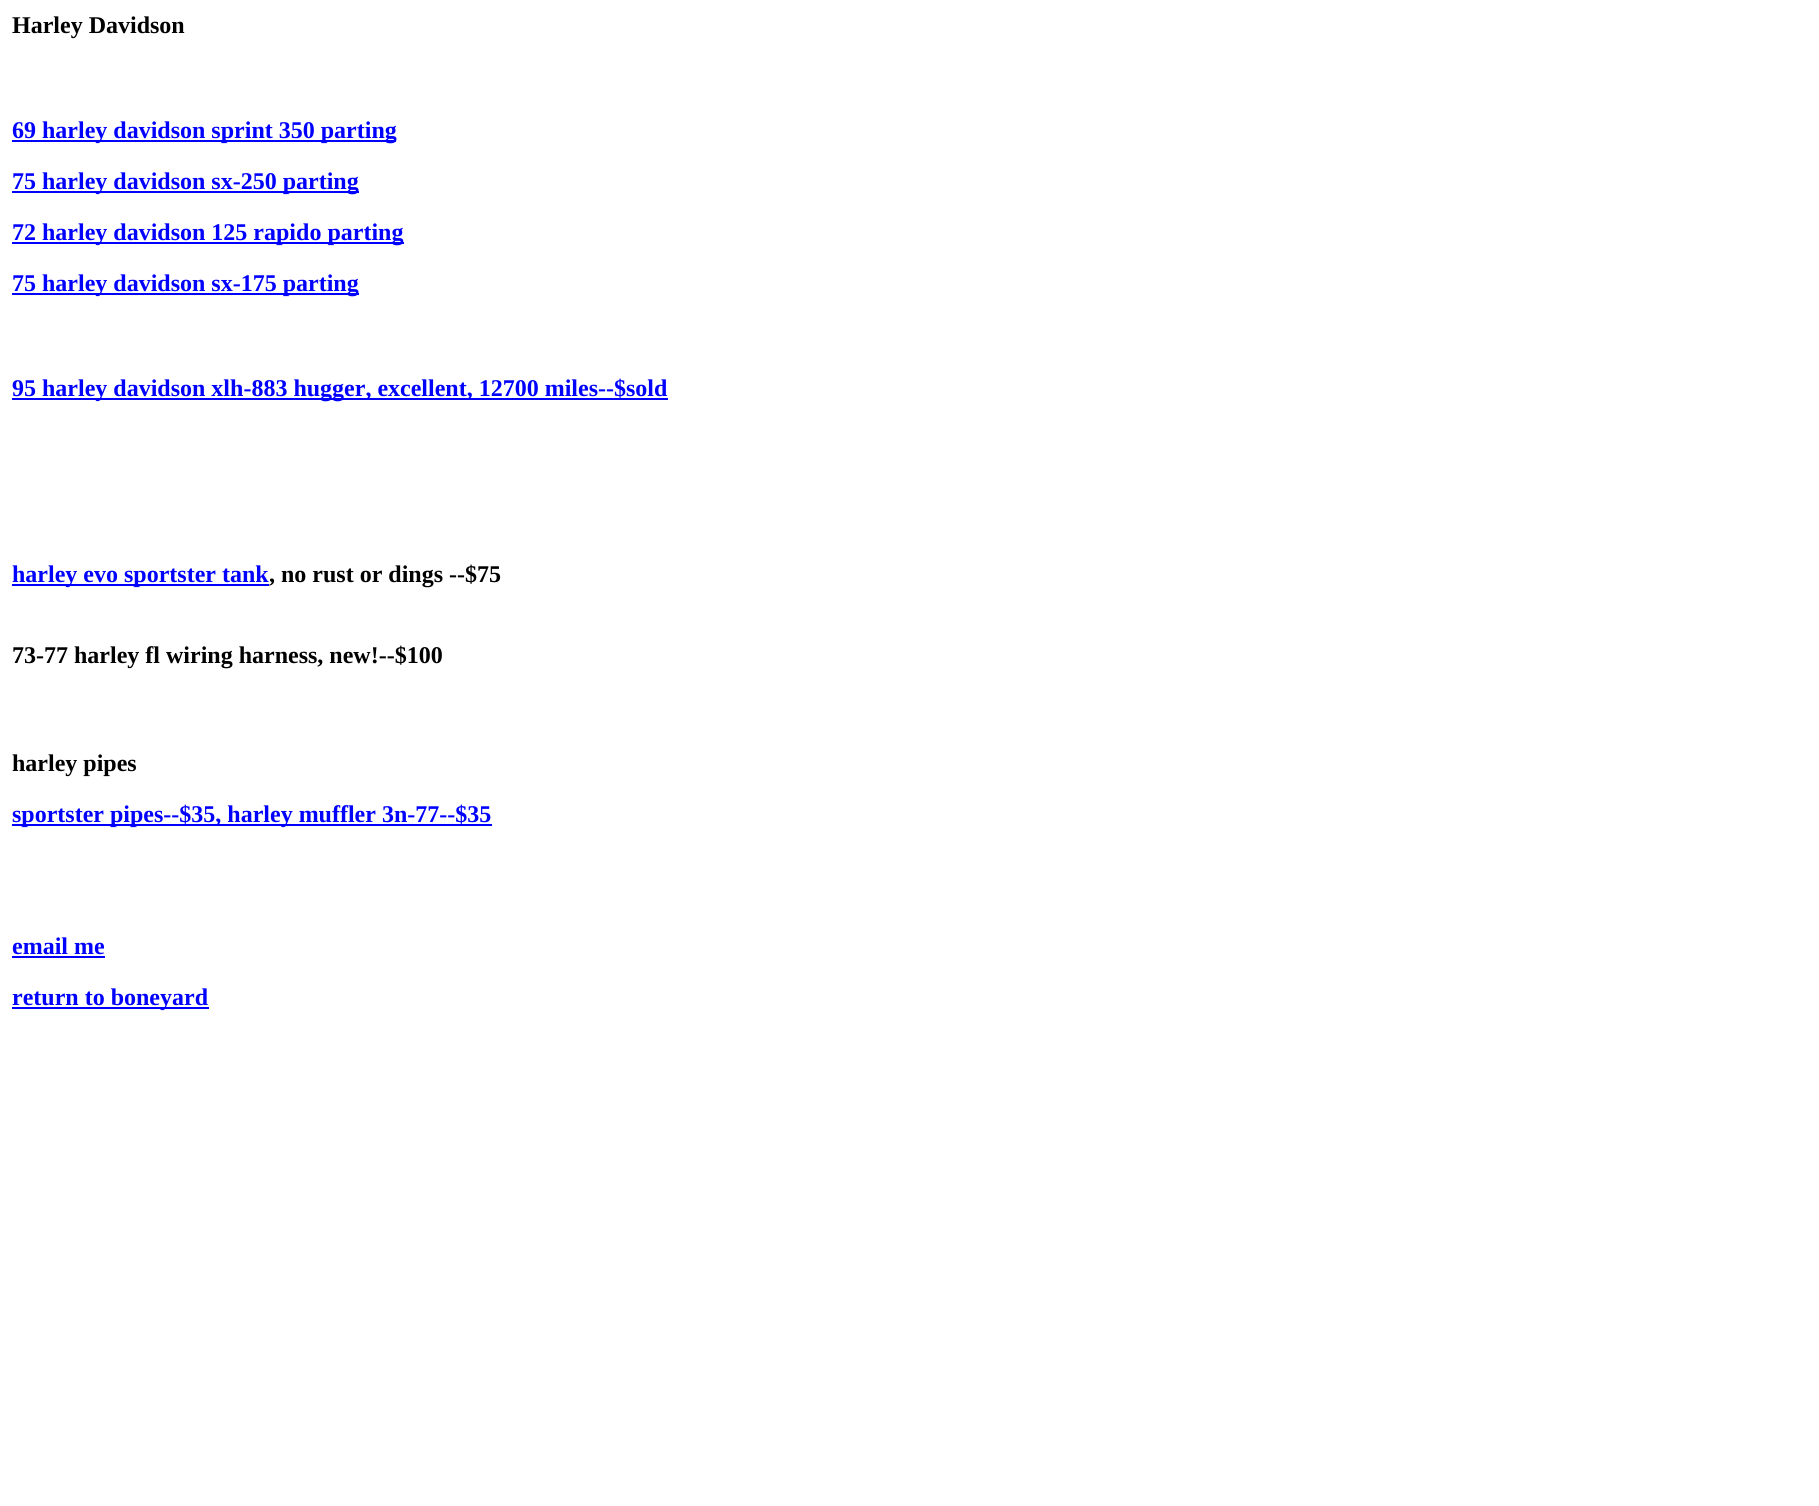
#include <cairo.h>
#include <math.h>
#include <stddef.h>

typedef struct { double x, y; const char *s; } line_t;

static void ink(cairo_t *ctx, unsigned color) {
    cairo_set_source_rgb(ctx, (color >> 16) / 255.0, (color >> 8 & 255) / 255.0, (color & 255) / 255.0);
}

int main(void) {
    cairo_surface_t *surface = cairo_image_surface_create(CAIRO_FORMAT_RGB24, 1819, 1506);
    cairo_t *ctx = cairo_create(surface);
    cairo_font_options_t *options = cairo_font_options_create();
    cairo_font_options_set_hint_metrics(options, CAIRO_HINT_METRICS_OFF);
    cairo_font_options_set_hint_style(options, CAIRO_HINT_STYLE_NONE);
    cairo_set_font_options(ctx, options);
    cairo_set_miter_limit(ctx, 4);
    ink(ctx, 0xFFFFFF);
    cairo_paint(ctx);
    cairo_select_font_face(ctx, "Liberation Serif", CAIRO_FONT_SLANT_NORMAL, CAIRO_FONT_WEIGHT_BOLD);
    cairo_set_font_size(ctx, 24);
    ink(ctx, 0x000000);
    cairo_move_to(ctx, 12, 33);
    cairo_show_text(ctx, "Harley Davidson");
    ink(ctx, 0x0000FF);
    cairo_rectangle(ctx, 12, 140, 384, 2);
    cairo_fill(ctx);
    cairo_move_to(ctx, 12, 138);
    cairo_show_text(ctx, "69 harley davidson sprint 350 parting");
    cairo_rectangle(ctx, 12, 191, 347, 2);
    cairo_fill(ctx);
    cairo_move_to(ctx, 12, 189);
    cairo_show_text(ctx, "75 harley davidson sx-250 parting");
    cairo_rectangle(ctx, 12, 242, 392, 2);
    cairo_fill(ctx);
    cairo_move_to(ctx, 12, 240);
    cairo_show_text(ctx, "72 harley davidson 125 rapido parting");
    cairo_rectangle(ctx, 12, 293, 347, 2);
    cairo_fill(ctx);
    cairo_move_to(ctx, 12, 291);
    cairo_show_text(ctx, "75 harley davidson sx-175 parting");
    cairo_rectangle(ctx, 12, 398, 656, 2);
    cairo_fill(ctx);
    cairo_move_to(ctx, 12, 396);
    cairo_show_text(ctx, "95 harley davidson xlh-883 hugger, excellent, 12700 miles--$sold");
    cairo_rectangle(ctx, 12, 584, 257, 2);
    cairo_fill(ctx);
    cairo_move_to(ctx, 12, 582);
    cairo_show_text(ctx, "harley evo sportster tank");
    ink(ctx, 0x000000);
    {
        static const line_t items[] = {
            {269, 582, ", no rust or dings --$75"},
            {12, 663, "73-77 harley fl wiring harness, new!--$100"},
            {12, 771, "harley pipes"},
        };
        for (size_t i = 0; i < sizeof items / sizeof *items; i++) {
            cairo_move_to(ctx, items[i].x, items[i].y);
            cairo_show_text(ctx, items[i].s);
        }
    }
    ink(ctx, 0x0000FF);
    cairo_rectangle(ctx, 12, 824, 480, 2);
    cairo_fill(ctx);
    cairo_move_to(ctx, 12, 822);
    cairo_show_text(ctx, "sportster pipes--$35, harley muffler 3n-77--$35");
    cairo_move_to(ctx, 12, 954);
    cairo_show_text(ctx, "email me");
    cairo_rectangle(ctx, 12, 956, 93, 2);
    cairo_fill(ctx);
    cairo_rectangle(ctx, 12, 1007, 197, 2);
    cairo_fill(ctx);
    cairo_move_to(ctx, 12, 1005);
    cairo_show_text(ctx, "return to boneyard");
    cairo_surface_write_to_png(surface, "image.png");
    cairo_font_options_destroy(options);
    cairo_destroy(ctx);
    cairo_surface_destroy(surface);
    return 0;
}
